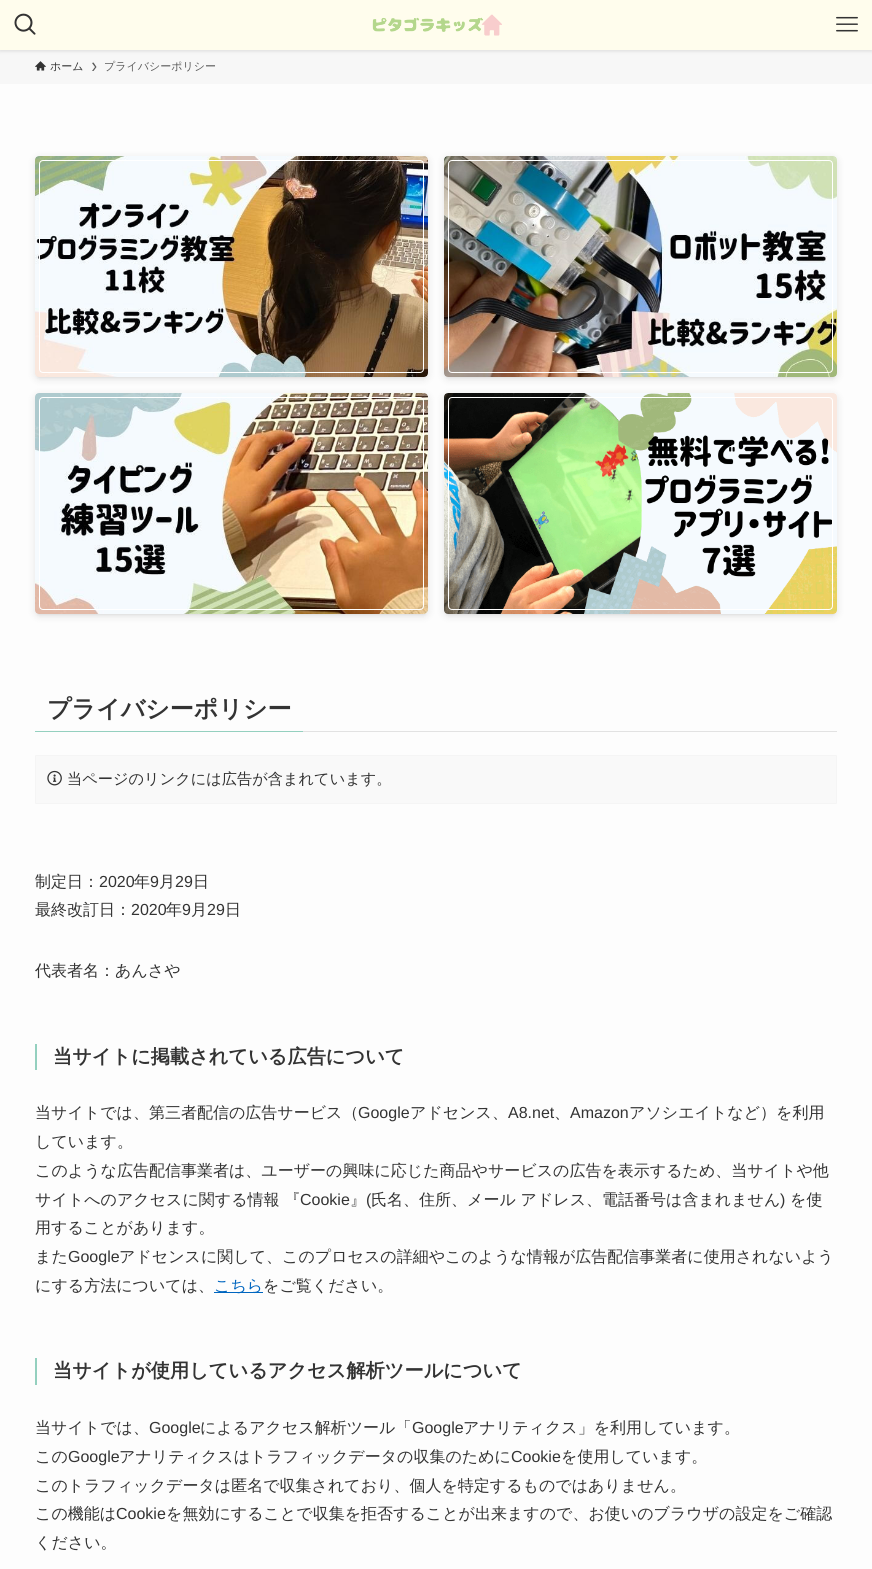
#include <cairo.h>
#include <math.h>
#include <stddef.h>

typedef struct { double x, y; const char *s; } line_t;

static void ink(cairo_t *ctx, unsigned color) {
    cairo_set_source_rgb(ctx, (color >> 16) / 255.0, (color >> 8 & 255) / 255.0, (color & 255) / 255.0);
}

static void round_path(cairo_t *ctx, double x, double y, double w, double h, double r) {
    cairo_new_sub_path(ctx);
    cairo_arc(ctx, x + w - r, y + h - r, r, 0, M_PI / 2);
    cairo_arc(ctx, x + r, y + h - r, r, M_PI / 2, M_PI);
    cairo_arc(ctx, x + r, y + r, r, M_PI, 1.5 * M_PI);
    cairo_arc(ctx, x + w - r, y + r, r, 1.5 * M_PI, 2 * M_PI);
    cairo_close_path(ctx);
}

static void blur_box(cairo_t *ctx, double x, double y, double w, double h, double r, double blur, double alpha) {
    cairo_push_group_with_content(ctx, CAIRO_CONTENT_ALPHA);
    cairo_set_operator(ctx, CAIRO_OPERATOR_SOURCE);
    for (int i = 15; i >= -15 && fmin(w, h) + blur * i / 3 > 0; i -= 2) {
        double e = blur * i / 6;
        cairo_set_source_rgba(ctx, 0, 0, 0, alpha * erfc((i - 1) / 8.5) / 2);
        round_path(ctx, x - e, y - e, w + 2 * e, h + 2 * e, fmax(0, fmin(r + e + blur * .6, fmin(w, h) / 2 + e)));
        cairo_fill(ctx);
    }
    cairo_pattern_t *soft = cairo_pop_group(ctx);
    cairo_mask(ctx, soft);
    cairo_pattern_destroy(soft);
}

static void paste(cairo_t *ctx, const char *path, double x, double y, double w, double h) {
    cairo_surface_t *image = cairo_image_surface_create_from_png(path);
    cairo_save(ctx);
    cairo_set_source_surface(ctx, image, x, y);
    cairo_rectangle(ctx, x, y, w, h);
    cairo_fill(ctx);
    cairo_restore(ctx);
    cairo_surface_destroy(image);
}

int main(void) {
    cairo_surface_t *surface = cairo_image_surface_create(CAIRO_FORMAT_RGB24, 872, 1569);
    cairo_t *ctx = cairo_create(surface);
    cairo_font_options_t *options = cairo_font_options_create();
    cairo_font_options_set_hint_metrics(options, CAIRO_HINT_METRICS_OFF);
    cairo_font_options_set_hint_style(options, CAIRO_HINT_STYLE_NONE);
    cairo_set_font_options(ctx, options);
    cairo_set_miter_limit(ctx, 4);
    ink(ctx, 0xFDFDFD);
    cairo_paint(ctx);
    ink(ctx, 0xF7F7F7);
    cairo_rectangle(ctx, 0, 50, 872, 34);
    cairo_fill(ctx);
    ink(ctx, 0x000000);
    blur_box(ctx, 0, 1, 872, 50, 0, 2, 0.12);
    ink(ctx, 0xFFFDED);
    cairo_rectangle(ctx, 0, 0, 872, 50);
    cairo_fill(ctx);
    paste(ctx, "media/1.png", 14, 13, 22, 22);
    paste(ctx, "media/2.png", 372, 14, 130, 22);
    paste(ctx, "media/3.png", 836, 16, 22, 16);
    paste(ctx, "media/4.png", 35, 61, 11, 10);
    cairo_select_font_face(ctx, "WenQuanYi Zen Hei Medium", CAIRO_FONT_SLANT_NORMAL, CAIRO_FONT_WEIGHT_NORMAL);
    cairo_set_font_size(ctx, 11);
    ink(ctx, 0x333333);
    cairo_move_to(ctx, 50, 70);
    cairo_show_text(ctx, "ホーム");
    ink(ctx, 0x5A5A5A);
    cairo_new_path(ctx);
    cairo_move_to(ctx, 93.5, 62.5);
    cairo_line_to(ctx, 92, 63);
    cairo_line_to(ctx, 95, 67);
    cairo_line_to(ctx, 92, 71);
    cairo_line_to(ctx, 93.5, 71);
    cairo_line_to(ctx, 96.5, 67);
    cairo_close_path(ctx);
    cairo_fill(ctx);
    cairo_move_to(ctx, 104, 70);
    cairo_show_text(ctx, "プライバシーポリシー");
    ink(ctx, 0x000000);
    blur_box(ctx, 39, 164, 385, 213, 0, 2, 0.1);
    blur_box(ctx, 35, 158, 393, 221, 4, 4, 0.1);
    paste(ctx, "media/5.png", 35, 156, 393, 221);
    round_path(ctx, 39.5, 160.5, 384, 212, 3.5);
    ink(ctx, 0xFFFFFF);
    cairo_set_line_width(ctx, 1);
    cairo_stroke(ctx);
    ink(ctx, 0x000000);
    blur_box(ctx, 448, 164, 385, 213, 0, 2, 0.1);
    blur_box(ctx, 444, 158, 393, 221, 4, 4, 0.1);
    paste(ctx, "media/6.png", 444, 156, 393, 221);
    round_path(ctx, 448.5, 160.5, 384, 212, 3.5);
    ink(ctx, 0xFFFFFF);
    cairo_stroke(ctx);
    ink(ctx, 0x000000);
    blur_box(ctx, 39, 401, 385, 213, 0, 2, 0.1);
    blur_box(ctx, 35, 395, 393, 221, 4, 4, 0.1);
    paste(ctx, "media/7.png", 35, 393, 393, 221);
    round_path(ctx, 39.5, 397.5, 384, 212, 3.5);
    ink(ctx, 0xFFFFFF);
    cairo_stroke(ctx);
    ink(ctx, 0x000000);
    blur_box(ctx, 448, 401, 385, 213, 0, 2, 0.1);
    blur_box(ctx, 444, 395, 393, 221, 4, 4, 0.1);
    paste(ctx, "media/8.png", 444, 393, 393, 221);
    round_path(ctx, 448.5, 397.5, 384, 212, 3.5);
    ink(ctx, 0xFFFFFF);
    cairo_stroke(ctx);
    ink(ctx, 0xE2E2E2);
    cairo_rectangle(ctx, 303, 731, 534, 1);
    cairo_fill(ctx);
    ink(ctx, 0x94D0BF);
    cairo_rectangle(ctx, 35, 731, 268, 1);
    cairo_fill(ctx);
    cairo_select_font_face(ctx, "WenQuanYi Zen Hei", CAIRO_FONT_SLANT_NORMAL, CAIRO_FONT_WEIGHT_BOLD);
    cairo_set_font_size(ctx, 24);
    ink(ctx, 0x333333);
    cairo_move_to(ctx, 47, 717);
    cairo_show_text(ctx, "プライバシーポリシー");
    ink(ctx, 0xF9F9F9);
    round_path(ctx, 35.5, 755.5, 801, 48, 0.5);
    cairo_fill_preserve(ctx);
    ink(ctx, 0xF5F5F5);
    cairo_stroke(ctx);
    paste(ctx, "media/9.png", 47, 770, 15, 16);
    cairo_select_font_face(ctx, "WenQuanYi Zen Hei Medium", CAIRO_FONT_SLANT_NORMAL, CAIRO_FONT_WEIGHT_NORMAL);
    cairo_set_font_size(ctx, 15.2);
    ink(ctx, 0x333333);
    cairo_move_to(ctx, 67, 784);
    cairo_show_text(ctx, "当ページのリンクには広告が含まれています。");
    cairo_set_font_size(ctx, 16);
    cairo_move_to(ctx, 35, 887);
    cairo_show_text(ctx, "制定日：");
    cairo_select_font_face(ctx, "Liberation Sans", CAIRO_FONT_SLANT_NORMAL, CAIRO_FONT_WEIGHT_NORMAL);
    cairo_move_to(ctx, 99, 887);
    cairo_show_text(ctx, "2020");
    cairo_select_font_face(ctx, "WenQuanYi Zen Hei Medium", CAIRO_FONT_SLANT_NORMAL, CAIRO_FONT_WEIGHT_NORMAL);
    cairo_move_to(ctx, 134, 887);
    cairo_show_text(ctx, "年");
    cairo_select_font_face(ctx, "Liberation Sans", CAIRO_FONT_SLANT_NORMAL, CAIRO_FONT_WEIGHT_NORMAL);
    cairo_move_to(ctx, 150, 887);
    cairo_show_text(ctx, "9");
    cairo_select_font_face(ctx, "WenQuanYi Zen Hei Medium", CAIRO_FONT_SLANT_NORMAL, CAIRO_FONT_WEIGHT_NORMAL);
    cairo_move_to(ctx, 159, 887);
    cairo_show_text(ctx, "月");
    cairo_select_font_face(ctx, "Liberation Sans", CAIRO_FONT_SLANT_NORMAL, CAIRO_FONT_WEIGHT_NORMAL);
    cairo_move_to(ctx, 175, 887);
    cairo_show_text(ctx, "29");
    cairo_select_font_face(ctx, "WenQuanYi Zen Hei Medium", CAIRO_FONT_SLANT_NORMAL, CAIRO_FONT_WEIGHT_NORMAL);
    cairo_move_to(ctx, 193, 887);
    cairo_show_text(ctx, "日");
    cairo_move_to(ctx, 35, 915);
    cairo_show_text(ctx, "最終改訂日：");
    cairo_select_font_face(ctx, "Liberation Sans", CAIRO_FONT_SLANT_NORMAL, CAIRO_FONT_WEIGHT_NORMAL);
    cairo_move_to(ctx, 131, 915);
    cairo_show_text(ctx, "2020");
    cairo_select_font_face(ctx, "WenQuanYi Zen Hei Medium", CAIRO_FONT_SLANT_NORMAL, CAIRO_FONT_WEIGHT_NORMAL);
    cairo_move_to(ctx, 166, 915);
    cairo_show_text(ctx, "年");
    cairo_select_font_face(ctx, "Liberation Sans", CAIRO_FONT_SLANT_NORMAL, CAIRO_FONT_WEIGHT_NORMAL);
    cairo_move_to(ctx, 182, 915);
    cairo_show_text(ctx, "9");
    cairo_select_font_face(ctx, "WenQuanYi Zen Hei Medium", CAIRO_FONT_SLANT_NORMAL, CAIRO_FONT_WEIGHT_NORMAL);
    cairo_move_to(ctx, 191, 915);
    cairo_show_text(ctx, "月");
    cairo_select_font_face(ctx, "Liberation Sans", CAIRO_FONT_SLANT_NORMAL, CAIRO_FONT_WEIGHT_NORMAL);
    cairo_move_to(ctx, 207, 915);
    cairo_show_text(ctx, "29");
    cairo_select_font_face(ctx, "WenQuanYi Zen Hei Medium", CAIRO_FONT_SLANT_NORMAL, CAIRO_FONT_WEIGHT_NORMAL);
    cairo_move_to(ctx, 225, 915);
    cairo_show_text(ctx, "日");
    cairo_move_to(ctx, 35, 976);
    cairo_show_text(ctx, "代表者名：あんさや");
    ink(ctx, 0x94D0BF);
    cairo_rectangle(ctx, 35, 1044, 2, 26);
    cairo_fill(ctx);
    cairo_select_font_face(ctx, "WenQuanYi Zen Hei", CAIRO_FONT_SLANT_NORMAL, CAIRO_FONT_WEIGHT_BOLD);
    cairo_set_font_size(ctx, 19.2);
    ink(ctx, 0x333333);
    cairo_move_to(ctx, 53, 1063);
    cairo_show_text(ctx, "当サイトに掲載されている広告について");
    cairo_select_font_face(ctx, "WenQuanYi Zen Hei Medium", CAIRO_FONT_SLANT_NORMAL, CAIRO_FONT_WEIGHT_NORMAL);
    cairo_set_font_size(ctx, 16);
    cairo_move_to(ctx, 35, 1118);
    cairo_show_text(ctx, "当サイトでは、第三者配信の広告サービス（");
    cairo_select_font_face(ctx, "Liberation Sans", CAIRO_FONT_SLANT_NORMAL, CAIRO_FONT_WEIGHT_NORMAL);
    cairo_move_to(ctx, 358, 1118);
    cairo_show_text(ctx, "Google");
    cairo_select_font_face(ctx, "WenQuanYi Zen Hei Medium", CAIRO_FONT_SLANT_NORMAL, CAIRO_FONT_WEIGHT_NORMAL);
    cairo_move_to(ctx, 410, 1118);
    cairo_show_text(ctx, "アドセンス、");
    cairo_select_font_face(ctx, "Liberation Sans", CAIRO_FONT_SLANT_NORMAL, CAIRO_FONT_WEIGHT_NORMAL);
    cairo_move_to(ctx, 508, 1118);
    cairo_show_text(ctx, "A8.net");
    cairo_select_font_face(ctx, "WenQuanYi Zen Hei Medium", CAIRO_FONT_SLANT_NORMAL, CAIRO_FONT_WEIGHT_NORMAL);
    cairo_move_to(ctx, 554, 1118);
    cairo_show_text(ctx, "、");
    cairo_select_font_face(ctx, "Liberation Sans", CAIRO_FONT_SLANT_NORMAL, CAIRO_FONT_WEIGHT_NORMAL);
    cairo_move_to(ctx, 570, 1118);
    cairo_show_text(ctx, "Amazon");
    cairo_select_font_face(ctx, "WenQuanYi Zen Hei Medium", CAIRO_FONT_SLANT_NORMAL, CAIRO_FONT_WEIGHT_NORMAL);
    {
        static const line_t items[] = {
            {629, 1118, "アソシエイトなど）を利用"},
            {35, 1147, "しています。"},
            {35, 1176, "このような広告配信事業者は、ユーザーの興味に応じた商品やサービスの広告を表示するため、当サイトや他"},
            {35, 1205, "サイトへのアクセスに関する情報 『"},
        };
        for (size_t i = 0; i < sizeof items / sizeof *items; i++) {
            cairo_move_to(ctx, items[i].x, items[i].y);
            cairo_show_text(ctx, items[i].s);
        }
    }
    cairo_select_font_face(ctx, "Liberation Sans", CAIRO_FONT_SLANT_NORMAL, CAIRO_FONT_WEIGHT_NORMAL);
    cairo_move_to(ctx, 300, 1205);
    cairo_show_text(ctx, "Cookie");
    cairo_select_font_face(ctx, "WenQuanYi Zen Hei Medium", CAIRO_FONT_SLANT_NORMAL, CAIRO_FONT_WEIGHT_NORMAL);
    cairo_move_to(ctx, 350, 1205);
    cairo_show_text(ctx, "』");
    cairo_select_font_face(ctx, "Liberation Sans", CAIRO_FONT_SLANT_NORMAL, CAIRO_FONT_WEIGHT_NORMAL);
    cairo_move_to(ctx, 366, 1205);
    cairo_show_text(ctx, "(");
    cairo_select_font_face(ctx, "WenQuanYi Zen Hei Medium", CAIRO_FONT_SLANT_NORMAL, CAIRO_FONT_WEIGHT_NORMAL);
    cairo_move_to(ctx, 371, 1205);
    cairo_show_text(ctx, "氏名、住所、メール アドレス、電話番号は含まれません");
    cairo_select_font_face(ctx, "Liberation Sans", CAIRO_FONT_SLANT_NORMAL, CAIRO_FONT_WEIGHT_NORMAL);
    cairo_move_to(ctx, 780, 1205);
    cairo_show_text(ctx, ")");
    cairo_select_font_face(ctx, "WenQuanYi Zen Hei Medium", CAIRO_FONT_SLANT_NORMAL, CAIRO_FONT_WEIGHT_NORMAL);
    {
        static const line_t items[] = {
            {790, 1205, "を使"},
            {35, 1233, "用することがあります。"},
            {35, 1262, "また"},
        };
        for (size_t i = 0; i < sizeof items / sizeof *items; i++) {
            cairo_move_to(ctx, items[i].x, items[i].y);
            cairo_show_text(ctx, items[i].s);
        }
    }
    cairo_select_font_face(ctx, "Liberation Sans", CAIRO_FONT_SLANT_NORMAL, CAIRO_FONT_WEIGHT_NORMAL);
    cairo_move_to(ctx, 68, 1262);
    cairo_show_text(ctx, "Google");
    cairo_select_font_face(ctx, "WenQuanYi Zen Hei Medium", CAIRO_FONT_SLANT_NORMAL, CAIRO_FONT_WEIGHT_NORMAL);
    cairo_move_to(ctx, 119, 1262);
    cairo_show_text(ctx, "アドセンスに関して、このプロセスの詳細やこのような情報が広告配信事業者に使用されないよう");
    cairo_move_to(ctx, 35, 1291);
    cairo_show_text(ctx, "にする方法については、");
    ink(ctx, 0x0066C0);
    cairo_rectangle(ctx, 214, 1292, 49, 1);
    cairo_fill(ctx);
    cairo_move_to(ctx, 214, 1291);
    cairo_show_text(ctx, "こちら");
    ink(ctx, 0x333333);
    cairo_move_to(ctx, 263, 1291);
    cairo_show_text(ctx, "をご覧ください。");
    ink(ctx, 0x94D0BF);
    cairo_rectangle(ctx, 35, 1358, 2, 27);
    cairo_fill(ctx);
    cairo_select_font_face(ctx, "WenQuanYi Zen Hei", CAIRO_FONT_SLANT_NORMAL, CAIRO_FONT_WEIGHT_BOLD);
    cairo_set_font_size(ctx, 19.2);
    ink(ctx, 0x333333);
    cairo_move_to(ctx, 53, 1377);
    cairo_show_text(ctx, "当サイトが使用しているアクセス解析ツールについて");
    cairo_select_font_face(ctx, "WenQuanYi Zen Hei Medium", CAIRO_FONT_SLANT_NORMAL, CAIRO_FONT_WEIGHT_NORMAL);
    cairo_set_font_size(ctx, 16);
    cairo_move_to(ctx, 35, 1433);
    cairo_show_text(ctx, "当サイトでは、");
    cairo_select_font_face(ctx, "Liberation Sans", CAIRO_FONT_SLANT_NORMAL, CAIRO_FONT_WEIGHT_NORMAL);
    cairo_move_to(ctx, 149, 1433);
    cairo_show_text(ctx, "Google");
    cairo_select_font_face(ctx, "WenQuanYi Zen Hei Medium", CAIRO_FONT_SLANT_NORMAL, CAIRO_FONT_WEIGHT_NORMAL);
    cairo_move_to(ctx, 200, 1433);
    cairo_show_text(ctx, "によるアクセス解析ツール「");
    cairo_select_font_face(ctx, "Liberation Sans", CAIRO_FONT_SLANT_NORMAL, CAIRO_FONT_WEIGHT_NORMAL);
    cairo_move_to(ctx, 412, 1433);
    cairo_show_text(ctx, "Google");
    cairo_select_font_face(ctx, "WenQuanYi Zen Hei Medium", CAIRO_FONT_SLANT_NORMAL, CAIRO_FONT_WEIGHT_NORMAL);
    cairo_move_to(ctx, 463, 1433);
    cairo_show_text(ctx, "アナリティクス」を利用しています。");
    cairo_move_to(ctx, 35, 1462);
    cairo_show_text(ctx, "この");
    cairo_select_font_face(ctx, "Liberation Sans", CAIRO_FONT_SLANT_NORMAL, CAIRO_FONT_WEIGHT_NORMAL);
    cairo_move_to(ctx, 68, 1462);
    cairo_show_text(ctx, "Google");
    cairo_select_font_face(ctx, "WenQuanYi Zen Hei Medium", CAIRO_FONT_SLANT_NORMAL, CAIRO_FONT_WEIGHT_NORMAL);
    cairo_move_to(ctx, 119, 1462);
    cairo_show_text(ctx, "アナリティクスはトラフィックデータの収集のために");
    cairo_select_font_face(ctx, "Liberation Sans", CAIRO_FONT_SLANT_NORMAL, CAIRO_FONT_WEIGHT_NORMAL);
    cairo_move_to(ctx, 511, 1462);
    cairo_show_text(ctx, "Cookie");
    cairo_select_font_face(ctx, "WenQuanYi Zen Hei Medium", CAIRO_FONT_SLANT_NORMAL, CAIRO_FONT_WEIGHT_NORMAL);
    {
        static const line_t items[] = {
            {561, 1462, "を使用しています。"},
            {35, 1491, "このトラフィックデータは匿名で収集されており、個人を特定するものではありません。"},
            {35, 1519, "この機能は"},
        };
        for (size_t i = 0; i < sizeof items / sizeof *items; i++) {
            cairo_move_to(ctx, items[i].x, items[i].y);
            cairo_show_text(ctx, items[i].s);
        }
    }
    cairo_select_font_face(ctx, "Liberation Sans", CAIRO_FONT_SLANT_NORMAL, CAIRO_FONT_WEIGHT_NORMAL);
    cairo_move_to(ctx, 116, 1519);
    cairo_show_text(ctx, "Cookie");
    cairo_select_font_face(ctx, "WenQuanYi Zen Hei Medium", CAIRO_FONT_SLANT_NORMAL, CAIRO_FONT_WEIGHT_NORMAL);
    cairo_move_to(ctx, 166, 1519);
    cairo_show_text(ctx, "を無効にすることで収集を拒否することが出来ますので、お使いのブラウザの設定をご確認");
    cairo_move_to(ctx, 35, 1548);
    cairo_show_text(ctx, "ください。");
    cairo_surface_write_to_png(surface, "image.png");
    cairo_font_options_destroy(options);
    cairo_destroy(ctx);
    cairo_surface_destroy(surface);
    return 0;
}
